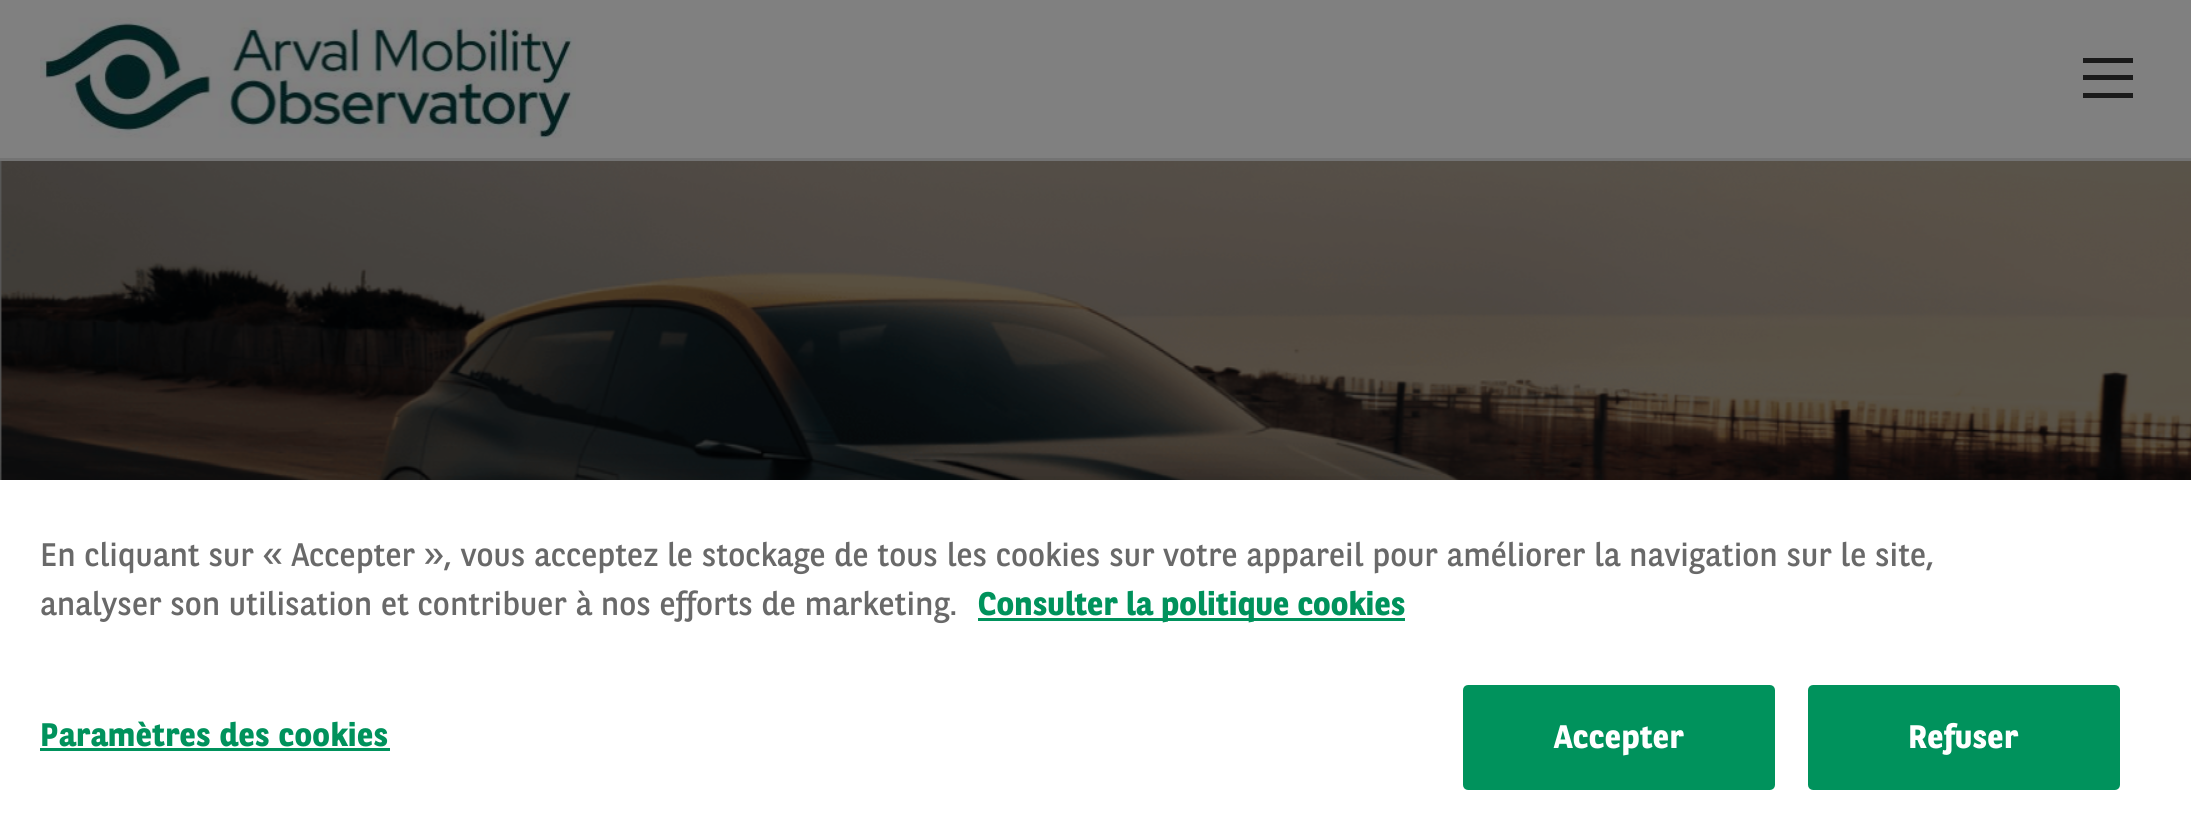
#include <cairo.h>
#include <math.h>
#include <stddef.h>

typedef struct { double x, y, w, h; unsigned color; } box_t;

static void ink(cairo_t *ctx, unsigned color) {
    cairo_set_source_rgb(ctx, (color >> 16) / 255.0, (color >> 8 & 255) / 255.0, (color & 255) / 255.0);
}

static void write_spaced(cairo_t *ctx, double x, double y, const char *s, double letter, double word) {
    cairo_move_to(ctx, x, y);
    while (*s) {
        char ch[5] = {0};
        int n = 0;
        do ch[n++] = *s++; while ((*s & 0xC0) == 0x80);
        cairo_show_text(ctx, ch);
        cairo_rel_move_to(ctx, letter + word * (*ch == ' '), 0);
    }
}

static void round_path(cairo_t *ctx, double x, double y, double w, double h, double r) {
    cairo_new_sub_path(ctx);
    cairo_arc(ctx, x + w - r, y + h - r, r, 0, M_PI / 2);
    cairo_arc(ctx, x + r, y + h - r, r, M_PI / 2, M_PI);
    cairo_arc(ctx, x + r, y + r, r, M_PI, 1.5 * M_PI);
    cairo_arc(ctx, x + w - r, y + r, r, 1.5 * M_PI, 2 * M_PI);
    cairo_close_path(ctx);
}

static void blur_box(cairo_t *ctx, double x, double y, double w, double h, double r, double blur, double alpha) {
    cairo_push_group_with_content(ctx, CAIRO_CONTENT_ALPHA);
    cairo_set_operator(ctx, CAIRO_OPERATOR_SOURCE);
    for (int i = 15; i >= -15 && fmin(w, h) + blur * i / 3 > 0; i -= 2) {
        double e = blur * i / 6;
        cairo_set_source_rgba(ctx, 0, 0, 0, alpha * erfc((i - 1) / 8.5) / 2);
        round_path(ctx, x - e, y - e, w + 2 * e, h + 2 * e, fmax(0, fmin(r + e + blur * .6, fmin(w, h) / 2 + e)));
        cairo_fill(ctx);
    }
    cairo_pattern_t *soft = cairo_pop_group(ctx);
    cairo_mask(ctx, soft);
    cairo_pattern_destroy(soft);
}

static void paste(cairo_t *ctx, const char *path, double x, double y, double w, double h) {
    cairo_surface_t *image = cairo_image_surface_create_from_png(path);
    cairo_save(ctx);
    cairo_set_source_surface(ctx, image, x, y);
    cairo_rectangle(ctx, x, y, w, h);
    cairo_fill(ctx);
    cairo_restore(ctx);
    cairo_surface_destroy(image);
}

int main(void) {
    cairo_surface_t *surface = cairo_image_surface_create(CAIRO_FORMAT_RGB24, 2191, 839);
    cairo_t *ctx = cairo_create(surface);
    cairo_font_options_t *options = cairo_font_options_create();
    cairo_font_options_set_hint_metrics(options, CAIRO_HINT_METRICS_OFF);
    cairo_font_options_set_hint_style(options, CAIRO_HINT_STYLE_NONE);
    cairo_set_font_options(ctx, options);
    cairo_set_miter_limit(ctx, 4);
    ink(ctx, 0x808080);
    cairo_paint(ctx);
    ink(ctx, 0x5A5A5A);
    cairo_rectangle(ctx, 0, 161, 2, 319);
    cairo_fill(ctx);
    ink(ctx, 0x737373);
    cairo_rectangle(ctx, 0, 158, 2191, 3);
    cairo_fill(ctx);
    paste(ctx, "media/1.png", 40, 17, 536, 122);
    {
        static const box_t items[] = {
            {2083, 58, 50, 5, 0x1A1A1A},
            {2083, 75, 50, 5, 0x1A1A1A},
            {2083, 93, 50, 5, 0x1A1A1A},
        };
        for (size_t i = 0; i < sizeof items / sizeof *items; i++) {
            ink(ctx, items[i].color);
            cairo_rectangle(ctx, items[i].x, items[i].y, items[i].w, items[i].h);
            cairo_fill(ctx);
        }
    }
    paste(ctx, "media/2.png", 0, 161, 2191, 319);
    ink(ctx, 0x000000);
    blur_box(ctx, 0, 480, 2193, 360, 0, 22.5, 0.2);
    ink(ctx, 0xFFFFFF);
    cairo_rectangle(ctx, 0, 480, 2191, 359);
    cairo_fill(ctx);
    cairo_select_font_face(ctx, "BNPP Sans", CAIRO_FONT_SLANT_NORMAL, CAIRO_FONT_WEIGHT_NORMAL);
    cairo_set_font_size(ctx, 32.52);
    ink(ctx, 0x696969);
    cairo_move_to(ctx, 40, 566);
    cairo_show_text(ctx, "En cliquant sur « Accepter », vous acceptez le stockage de tous les cookies sur votre appareil pour améliorer la navigation sur le site,");
    cairo_move_to(ctx, 40, 615);
    cairo_show_text(ctx, "analyser son utilisation et contribuer à nos efforts de marketing.");
    ink(ctx, 0x00925C);
    cairo_rectangle(ctx, 978, 618, 427, 3);
    cairo_fill(ctx);
    cairo_select_font_face(ctx, "BNPP Sans", CAIRO_FONT_SLANT_NORMAL, CAIRO_FONT_WEIGHT_BOLD);
    cairo_move_to(ctx, 978, 615);
    cairo_show_text(ctx, "Consulter la politique cookies");
    write_spaced(ctx, 40, 746, "Paramètres des cookies", 0.3, 0);
    cairo_rectangle(ctx, 40, 748, 350, 3);
    cairo_fill(ctx);
    round_path(ctx, 1464.5, 686.5, 309, 102, 3.5);
    cairo_fill_preserve(ctx);
    cairo_set_line_width(ctx, 3);
    cairo_stroke(ctx);
    ink(ctx, 0xFFFFFF);
    write_spaced(ctx, 1554, 748, "Accepter", 0.3, 0);
    ink(ctx, 0x00925C);
    round_path(ctx, 1809.5, 686.5, 309, 102, 3.5);
    cairo_fill_preserve(ctx);
    cairo_stroke(ctx);
    ink(ctx, 0xFFFFFF);
    write_spaced(ctx, 1908, 748, "Refuser", 0.3, 0);
    cairo_surface_write_to_png(surface, "image.png");
    cairo_font_options_destroy(options);
    cairo_destroy(ctx);
    cairo_surface_destroy(surface);
    return 0;
}
